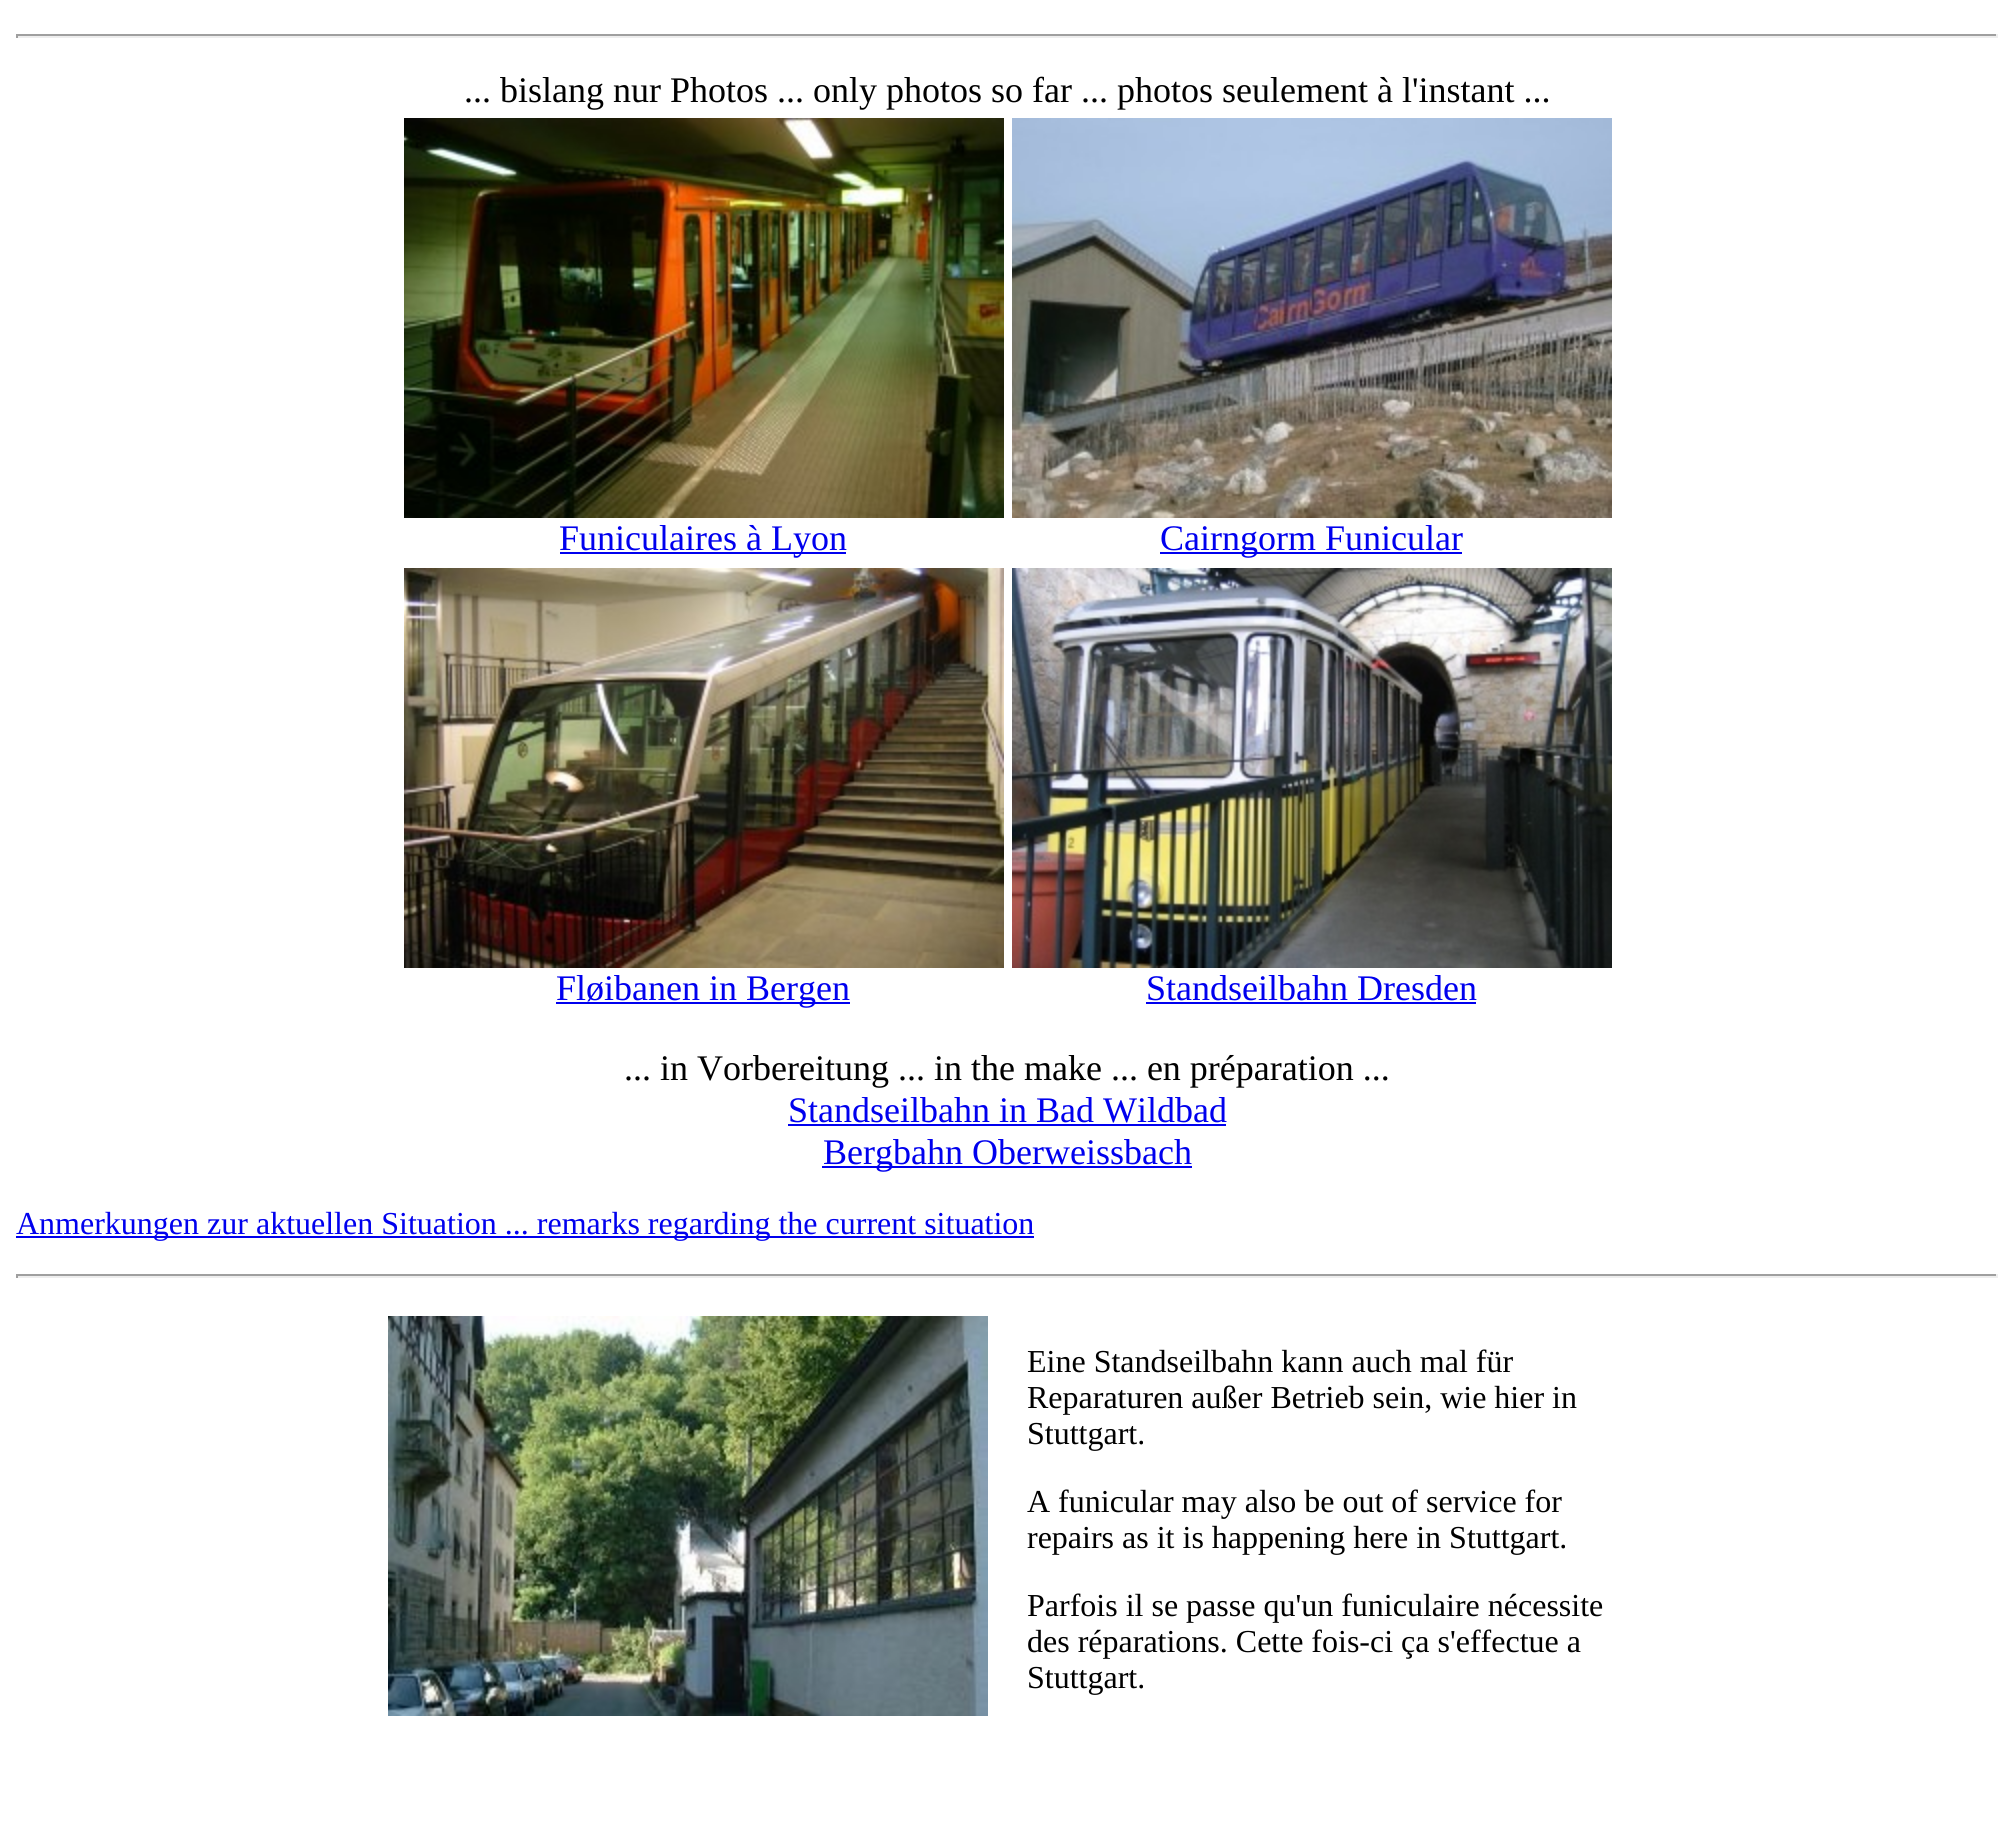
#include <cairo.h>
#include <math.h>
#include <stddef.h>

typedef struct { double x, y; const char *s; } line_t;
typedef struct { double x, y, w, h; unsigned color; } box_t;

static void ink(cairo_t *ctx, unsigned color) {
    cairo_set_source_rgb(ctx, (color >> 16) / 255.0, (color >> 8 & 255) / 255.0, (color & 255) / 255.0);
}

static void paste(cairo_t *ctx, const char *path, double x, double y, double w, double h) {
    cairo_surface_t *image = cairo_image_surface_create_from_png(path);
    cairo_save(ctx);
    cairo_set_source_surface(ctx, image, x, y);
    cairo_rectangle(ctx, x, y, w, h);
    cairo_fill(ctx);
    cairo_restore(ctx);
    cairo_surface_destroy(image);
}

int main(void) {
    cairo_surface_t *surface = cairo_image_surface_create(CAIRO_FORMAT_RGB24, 2013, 1821);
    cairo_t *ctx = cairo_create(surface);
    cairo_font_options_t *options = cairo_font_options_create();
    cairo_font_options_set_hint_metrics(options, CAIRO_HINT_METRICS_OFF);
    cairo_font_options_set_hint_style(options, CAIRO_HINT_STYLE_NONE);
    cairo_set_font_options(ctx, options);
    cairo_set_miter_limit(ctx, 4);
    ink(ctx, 0xFFFFFF);
    cairo_paint(ctx);
    {
        static const box_t items[] = {
            {16, 34, 1982, 2, 0x9F9F9F},
            {1996, 34, 2, 4, 0xEEEEEE},
            {16, 36, 1982, 2, 0xEEEEEE},
            {16, 34, 2, 4, 0x9F9F9F},
        };
        for (size_t i = 0; i < sizeof items / sizeof *items; i++) {
            ink(ctx, items[i].color);
            cairo_rectangle(ctx, items[i].x, items[i].y, items[i].w, items[i].h);
            cairo_fill(ctx);
        }
    }
    cairo_select_font_face(ctx, "Liberation Serif", CAIRO_FONT_SLANT_NORMAL, CAIRO_FONT_WEIGHT_NORMAL);
    cairo_set_font_size(ctx, 36);
    ink(ctx, 0x000000);
    cairo_move_to(ctx, 464, 102);
    cairo_show_text(ctx, "... bislang nur Photos ... only photos so far ... photos seulement à l'instant ...");
    paste(ctx, "media/1.png", 404, 118, 600, 400);
    ink(ctx, 0x0000EE);
    cairo_rectangle(ctx, 560, 552, 286, 2);
    cairo_fill(ctx);
    cairo_move_to(ctx, 559, 550);
    cairo_show_text(ctx, "Funiculaires à Lyon");
    paste(ctx, "media/2.png", 1012, 118, 600, 400);
    cairo_rectangle(ctx, 1160, 552, 302, 2);
    cairo_fill(ctx);
    cairo_move_to(ctx, 1160, 550);
    cairo_show_text(ctx, "Cairngorm Funicular");
    paste(ctx, "media/3.png", 404, 568, 600, 400);
    cairo_rectangle(ctx, 556, 1002, 294, 2);
    cairo_fill(ctx);
    cairo_move_to(ctx, 556, 1000);
    cairo_show_text(ctx, "Fløibanen in Bergen");
    paste(ctx, "media/4.png", 1012, 568, 600, 400);
    cairo_move_to(ctx, 1146, 1000);
    cairo_show_text(ctx, "Standseilbahn Dresden");
    cairo_rectangle(ctx, 1146, 1002, 330, 2);
    cairo_fill(ctx);
    ink(ctx, 0x000000);
    cairo_move_to(ctx, 624, 1080);
    cairo_show_text(ctx, "... in Vorbereitung ... in the make ... en préparation ...");
    ink(ctx, 0x0000EE);
    cairo_move_to(ctx, 788, 1122);
    cairo_show_text(ctx, "Standseilbahn in Bad Wildbad");
    cairo_rectangle(ctx, 788, 1124, 438, 2);
    cairo_fill(ctx);
    cairo_rectangle(ctx, 822, 1166, 370, 2);
    cairo_fill(ctx);
    cairo_move_to(ctx, 823, 1164);
    cairo_show_text(ctx, "Bergbahn Oberweissbach");
    cairo_rectangle(ctx, 16, 1236, 1018, 2);
    cairo_fill(ctx);
    cairo_set_font_size(ctx, 32);
    cairo_move_to(ctx, 16, 1234);
    cairo_show_text(ctx, "Anmerkungen zur aktuellen Situation ... remarks regarding the current situation");
    {
        static const box_t items[] = {
            {16, 1274, 1982, 2, 0x9F9F9F},
            {1996, 1274, 2, 4, 0xEEEEEE},
            {16, 1276, 1982, 2, 0xEEEEEE},
            {16, 1274, 2, 4, 0x9F9F9F},
        };
        for (size_t i = 0; i < sizeof items / sizeof *items; i++) {
            ink(ctx, items[i].color);
            cairo_rectangle(ctx, items[i].x, items[i].y, items[i].w, items[i].h);
            cairo_fill(ctx);
        }
    }
    paste(ctx, "media/5.png", 388, 1316, 600, 400);
    ink(ctx, 0x000000);
    {
        static const line_t items[] = {
            {1027, 1372, "Eine Standseilbahn kann auch mal für"},
            {1027, 1408, "Reparaturen außer Betrieb sein, wie hier in"},
            {1027, 1444, "Stuttgart."},
            {1027, 1512, "A funicular may also be out of service for"},
            {1027, 1548, "repairs as it is happening here in Stuttgart."},
            {1027, 1616, "Parfois il se passe qu'un funiculaire nécessite"},
            {1027, 1652, "des réparations. Cette fois-ci ça s'effectue a"},
            {1027, 1688, "Stuttgart."},
        };
        for (size_t i = 0; i < sizeof items / sizeof *items; i++) {
            cairo_move_to(ctx, items[i].x, items[i].y);
            cairo_show_text(ctx, items[i].s);
        }
    }
    cairo_surface_write_to_png(surface, "image.png");
    cairo_font_options_destroy(options);
    cairo_destroy(ctx);
    cairo_surface_destroy(surface);
    return 0;
}
